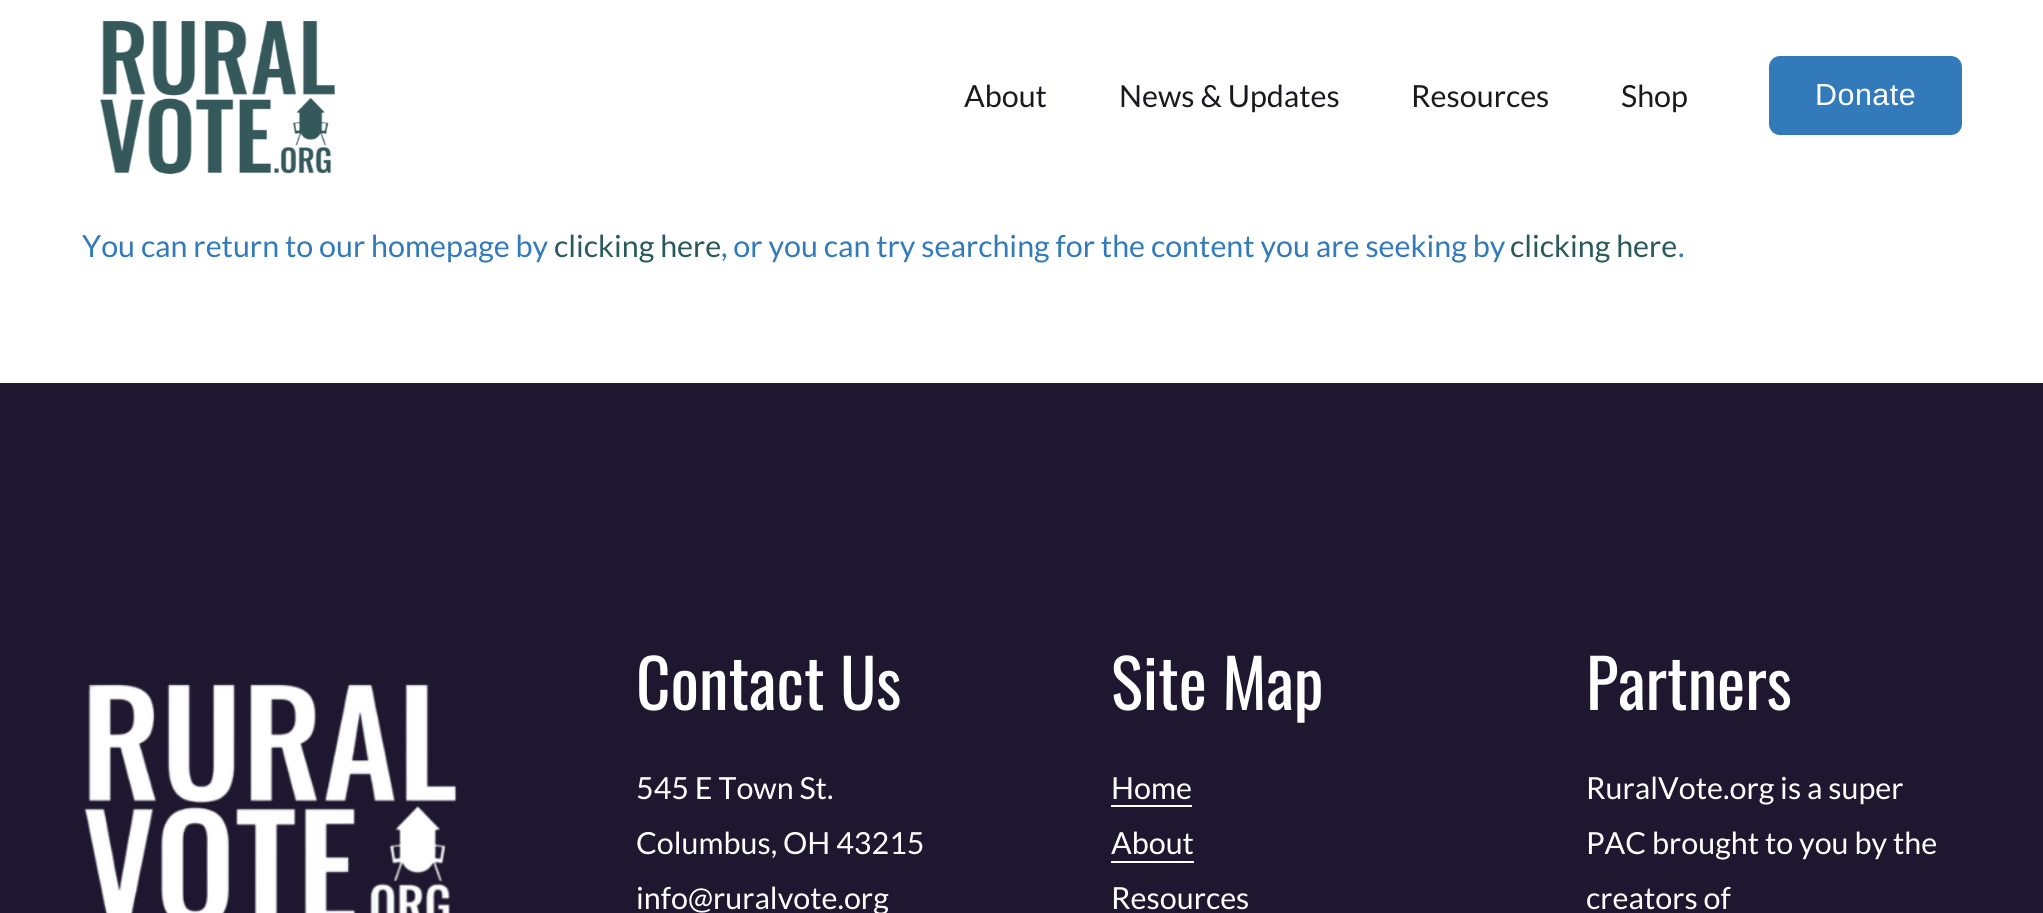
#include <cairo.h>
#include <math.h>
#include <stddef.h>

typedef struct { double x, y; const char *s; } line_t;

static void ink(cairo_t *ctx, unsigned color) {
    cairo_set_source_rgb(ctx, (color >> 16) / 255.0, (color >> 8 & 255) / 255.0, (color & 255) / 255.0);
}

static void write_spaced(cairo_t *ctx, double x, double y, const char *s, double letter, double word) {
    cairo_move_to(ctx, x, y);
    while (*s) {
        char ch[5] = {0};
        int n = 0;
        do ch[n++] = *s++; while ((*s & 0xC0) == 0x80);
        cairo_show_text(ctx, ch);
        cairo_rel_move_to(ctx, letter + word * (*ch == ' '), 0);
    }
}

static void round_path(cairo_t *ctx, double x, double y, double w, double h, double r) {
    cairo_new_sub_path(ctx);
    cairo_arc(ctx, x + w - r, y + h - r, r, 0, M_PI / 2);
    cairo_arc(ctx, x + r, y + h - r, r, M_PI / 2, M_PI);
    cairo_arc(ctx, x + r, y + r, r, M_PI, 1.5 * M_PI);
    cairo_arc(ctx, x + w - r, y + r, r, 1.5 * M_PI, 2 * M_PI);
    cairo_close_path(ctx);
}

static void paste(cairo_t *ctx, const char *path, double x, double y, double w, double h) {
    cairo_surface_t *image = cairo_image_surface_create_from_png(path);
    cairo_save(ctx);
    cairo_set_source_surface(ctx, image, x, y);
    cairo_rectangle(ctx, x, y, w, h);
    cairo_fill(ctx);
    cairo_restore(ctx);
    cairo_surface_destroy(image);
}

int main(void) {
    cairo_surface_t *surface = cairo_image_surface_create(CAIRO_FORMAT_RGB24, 2043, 913);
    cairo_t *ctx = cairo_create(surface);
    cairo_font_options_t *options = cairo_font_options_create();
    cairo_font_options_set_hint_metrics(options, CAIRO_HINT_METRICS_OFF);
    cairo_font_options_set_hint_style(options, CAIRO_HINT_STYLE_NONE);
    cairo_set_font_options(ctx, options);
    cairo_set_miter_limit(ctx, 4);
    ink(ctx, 0xFFFFFF);
    cairo_paint(ctx);
    paste(ctx, "media/1.png", 100, 21, 235, 153);
    cairo_select_font_face(ctx, "Lato", CAIRO_FONT_SLANT_NORMAL, CAIRO_FONT_WEIGHT_NORMAL);
    cairo_set_font_size(ctx, 30.45);
    ink(ctx, 0x1A191F);
    {
        static const line_t items[] = {
            {964, 107, "About"},
            {1119, 107, "News & Updates"},
            {1411, 107, "Resources"},
            {1621, 107, "Shop"},
        };
        for (size_t i = 0; i < sizeof items / sizeof *items; i++) {
            cairo_move_to(ctx, items[i].x, items[i].y);
            cairo_show_text(ctx, items[i].s);
        }
    }
    ink(ctx, 0x327ABA);
    round_path(ctx, 1769, 56, 193, 79, 11);
    cairo_fill(ctx);
    cairo_select_font_face(ctx, "Liberation Sans", CAIRO_FONT_SLANT_NORMAL, CAIRO_FONT_WEIGHT_NORMAL);
    ink(ctx, 0xFFFFFF);
    write_spaced(ctx, 1815, 105, "Donate", 0.5, 0);
    cairo_select_font_face(ctx, "Lato", CAIRO_FONT_SLANT_NORMAL, CAIRO_FONT_WEIGHT_NORMAL);
    ink(ctx, 0x327ABA);
    cairo_move_to(ctx, 82, 257);
    cairo_show_text(ctx, "You can return to our homepage by");
    ink(ctx, 0x29595B);
    cairo_move_to(ctx, 554, 257);
    cairo_show_text(ctx, "clicking here");
    ink(ctx, 0x327ABA);
    cairo_move_to(ctx, 721, 257);
    cairo_show_text(ctx, ", or you can try searching for the content you are seeking by");
    ink(ctx, 0x29595B);
    cairo_move_to(ctx, 1510, 257);
    cairo_show_text(ctx, "clicking here");
    ink(ctx, 0x327ABA);
    cairo_move_to(ctx, 1678, 257);
    cairo_show_text(ctx, ".");
    ink(ctx, 0x1E172F);
    cairo_rectangle(ctx, 0, 383, 2043, 530);
    cairo_fill(ctx);
    paste(ctx, "media/2.png", 84, 683, 373, 230);
    cairo_select_font_face(ctx, "Oswald", CAIRO_FONT_SLANT_NORMAL, CAIRO_FONT_WEIGHT_NORMAL);
    cairo_set_font_size(ctx, 67);
    ink(ctx, 0xFFFFFF);
    {
        static const line_t items[] = {
            {636, 710, "Contact Us"},
            {1111, 710, "Site Map"},
            {1586, 710, "Partners"},
        };
        for (size_t i = 0; i < sizeof items / sizeof *items; i++) {
            cairo_move_to(ctx, items[i].x, items[i].y);
            cairo_show_text(ctx, items[i].s);
        }
    }
    cairo_select_font_face(ctx, "Lato", CAIRO_FONT_SLANT_NORMAL, CAIRO_FONT_WEIGHT_NORMAL);
    cairo_set_font_size(ctx, 30.45);
    {
        static const line_t items[] = {
            {636, 799, "545 E Town St."},
            {636, 854, "Columbus, OH 43215"},
            {636, 909, "info@ruralvote.org"},
            {1111, 799, "Home"},
        };
        for (size_t i = 0; i < sizeof items / sizeof *items; i++) {
            cairo_move_to(ctx, items[i].x, items[i].y);
            cairo_show_text(ctx, items[i].s);
        }
    }
    cairo_rectangle(ctx, 1111, 805, 81, 2);
    cairo_fill(ctx);
    cairo_move_to(ctx, 1111, 854);
    cairo_show_text(ctx, "About");
    cairo_rectangle(ctx, 1111, 861, 83, 2);
    cairo_fill(ctx);
    {
        static const line_t items[] = {
            {1111, 909, "Resources"},
            {1586, 799, "RuralVote.org is a super"},
            {1586, 854, "PAC brought to you by the"},
            {1586, 909, "creators of"},
        };
        for (size_t i = 0; i < sizeof items / sizeof *items; i++) {
            cairo_move_to(ctx, items[i].x, items[i].y);
            cairo_show_text(ctx, items[i].s);
        }
    }
    cairo_surface_write_to_png(surface, "image.png");
    cairo_font_options_destroy(options);
    cairo_destroy(ctx);
    cairo_surface_destroy(surface);
    return 0;
}
